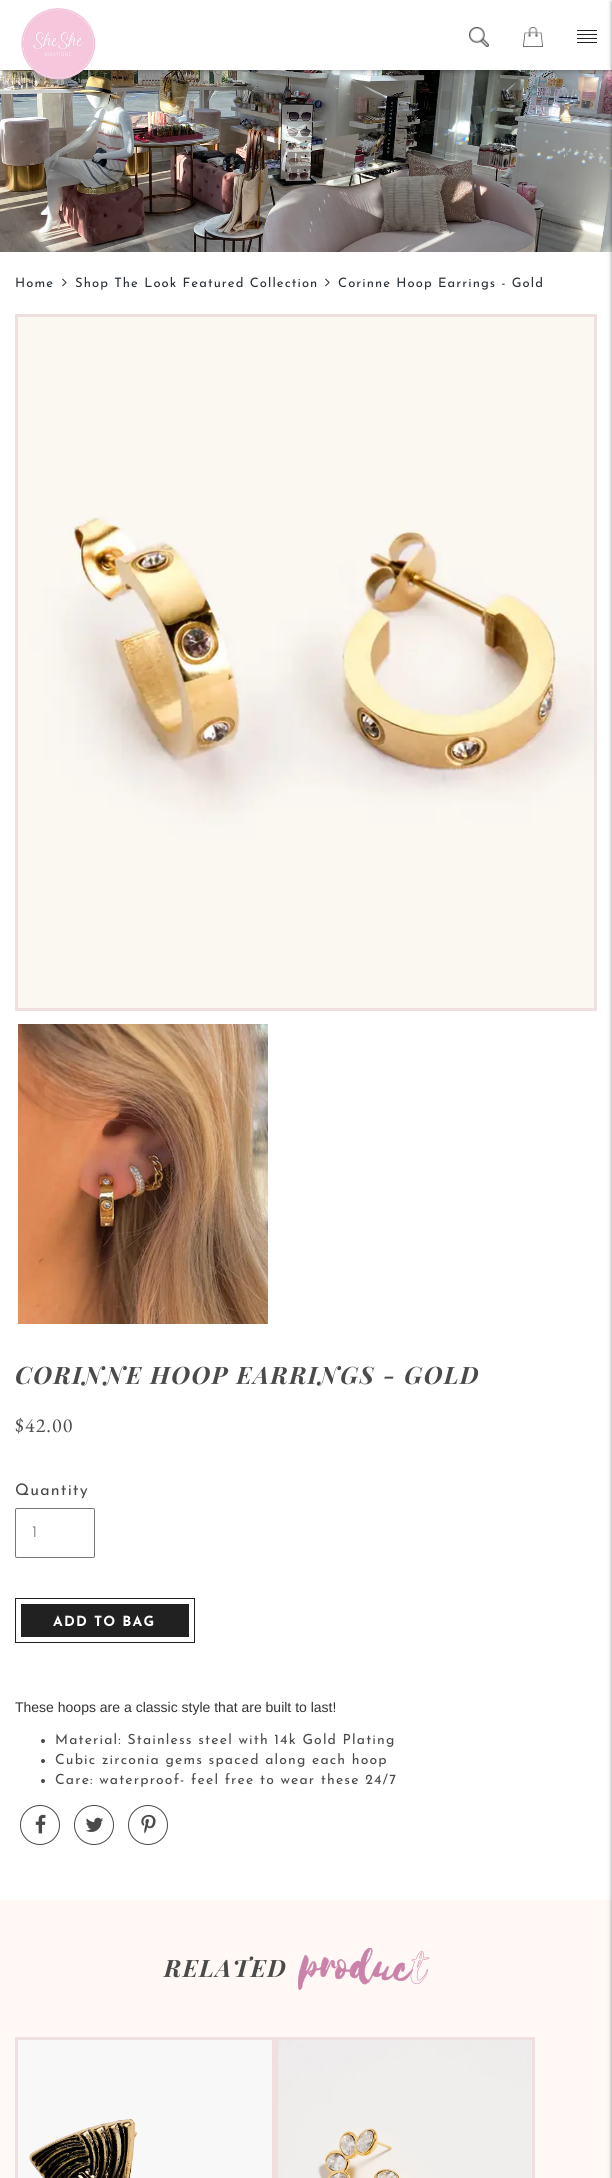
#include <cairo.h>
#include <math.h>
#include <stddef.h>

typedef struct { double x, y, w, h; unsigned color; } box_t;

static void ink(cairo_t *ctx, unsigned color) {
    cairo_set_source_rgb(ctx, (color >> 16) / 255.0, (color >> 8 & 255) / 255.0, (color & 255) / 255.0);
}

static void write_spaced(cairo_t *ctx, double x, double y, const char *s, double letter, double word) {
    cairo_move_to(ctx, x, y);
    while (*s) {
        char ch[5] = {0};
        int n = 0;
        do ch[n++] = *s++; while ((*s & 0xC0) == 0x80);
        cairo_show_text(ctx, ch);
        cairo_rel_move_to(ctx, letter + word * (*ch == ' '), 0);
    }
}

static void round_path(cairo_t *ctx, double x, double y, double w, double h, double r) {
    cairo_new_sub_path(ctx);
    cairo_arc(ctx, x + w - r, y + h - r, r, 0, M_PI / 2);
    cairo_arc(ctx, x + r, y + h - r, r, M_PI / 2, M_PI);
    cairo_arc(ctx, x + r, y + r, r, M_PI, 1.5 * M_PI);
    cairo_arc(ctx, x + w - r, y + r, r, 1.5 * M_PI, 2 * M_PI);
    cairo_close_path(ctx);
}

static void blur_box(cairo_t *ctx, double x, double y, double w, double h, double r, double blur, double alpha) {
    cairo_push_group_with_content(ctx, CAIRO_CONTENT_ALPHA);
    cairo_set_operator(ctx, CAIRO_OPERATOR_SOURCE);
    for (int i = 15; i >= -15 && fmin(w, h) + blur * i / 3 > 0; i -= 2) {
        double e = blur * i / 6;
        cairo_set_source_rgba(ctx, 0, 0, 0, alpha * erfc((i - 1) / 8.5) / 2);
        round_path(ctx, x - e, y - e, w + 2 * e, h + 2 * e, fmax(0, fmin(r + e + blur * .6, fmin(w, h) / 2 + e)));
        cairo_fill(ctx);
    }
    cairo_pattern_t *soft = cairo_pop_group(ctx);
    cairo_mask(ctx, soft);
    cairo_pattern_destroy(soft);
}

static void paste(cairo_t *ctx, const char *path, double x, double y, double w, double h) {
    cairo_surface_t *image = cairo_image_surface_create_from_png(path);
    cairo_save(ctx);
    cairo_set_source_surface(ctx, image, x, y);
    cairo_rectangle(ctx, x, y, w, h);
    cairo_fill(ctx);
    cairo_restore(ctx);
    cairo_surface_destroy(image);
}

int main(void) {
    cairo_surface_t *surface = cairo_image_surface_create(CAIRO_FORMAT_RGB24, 612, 2178);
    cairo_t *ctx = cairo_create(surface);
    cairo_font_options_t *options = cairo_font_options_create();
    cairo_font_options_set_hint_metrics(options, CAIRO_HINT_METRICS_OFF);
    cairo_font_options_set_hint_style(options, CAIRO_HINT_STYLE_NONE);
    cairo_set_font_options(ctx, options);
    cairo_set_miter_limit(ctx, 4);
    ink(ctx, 0xFFFFFF);
    cairo_paint(ctx);
    paste(ctx, "media/4.png", 0, 70, 612, 182);
    ink(ctx, 0x000000);
    blur_box(ctx, 3, 4, 606, 64, 0, 4, 0.75);
    ink(ctx, 0xFFFFFF);
    cairo_rectangle(ctx, 0, 0, 612, 70);
    cairo_fill(ctx);
    paste(ctx, "media/1.png", 21, 8, 75, 72);
    paste(ctx, "media/2.png", 469, 27, 20, 20);
    paste(ctx, "media/3.png", 523, 27, 20, 20);
    {
        static const box_t items[] = {
            {577, 30, 20, 1, 0x222121},
            {577, 34, 20, 1, 0x222121},
            {577, 38, 20, 1, 0x222121},
            {577, 42, 20, 1, 0x222121},
            {0, 1900, 612, 278, 0xFFF8F5},
        };
        for (size_t i = 0; i < sizeof items / sizeof *items; i++) {
            ink(ctx, items[i].color);
            cairo_rectangle(ctx, items[i].x, items[i].y, items[i].w, items[i].h);
            cairo_fill(ctx);
        }
    }
    ink(ctx, 0x000000);
    blur_box(ctx, 612, 2, 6, 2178, 0, 2, 0.5);
    cairo_select_font_face(ctx, "Josefin Sans Thin", CAIRO_FONT_SLANT_NORMAL, CAIRO_FONT_WEIGHT_NORMAL);
    cairo_set_font_size(ctx, 13);
    ink(ctx, 0x282F37);
    write_spaced(ctx, 15, 287, "Home", 1.1, 0);
    paste(ctx, "media/5.png", 62, 278, 5, 9);
    write_spaced(ctx, 75, 287, "Shop The Look Featured Collection", 1.1, 0);
    paste(ctx, "media/5.png", 325, 278, 5, 9);
    write_spaced(ctx, 338, 287, "Corinne Hoop Earrings - Gold", 1.1, 0);
    cairo_rectangle(ctx, 16.5, 315.5, 579, 694);
    ink(ctx, 0xEFDFDF);
    cairo_set_line_width(ctx, 3);
    cairo_stroke(ctx);
    paste(ctx, "media/6.png", 18, 317, 576, 691);
    paste(ctx, "media/7.png", 18, 1024, 250, 300);
    cairo_select_font_face(ctx, "Playfair Display", CAIRO_FONT_SLANT_ITALIC, CAIRO_FONT_WEIGHT_BOLD);
    cairo_set_font_size(ctx, 24);
    ink(ctx, 0x4A4A4A);
    write_spaced(ctx, 15, 1384, "CORINNE HOOP EARRINGS - GOLD", 1.6, 0);
    cairo_select_font_face(ctx, "EB Garamond", CAIRO_FONT_SLANT_NORMAL, CAIRO_FONT_WEIGHT_NORMAL);
    cairo_set_font_size(ctx, 20);
    write_spaced(ctx, 15, 1432, "$42.00", 1.1, 0);
    cairo_select_font_face(ctx, "Josefin Sans Thin", CAIRO_FONT_SLANT_NORMAL, CAIRO_FONT_WEIGHT_NORMAL);
    cairo_set_font_size(ctx, 16);
    write_spaced(ctx, 15, 1495, "Quantity", 1.15, 0);
    round_path(ctx, 15.5, 1508.5, 79, 49, 1.5);
    ink(ctx, 0x767676);
    cairo_set_line_width(ctx, 1);
    cairo_stroke(ctx);
    cairo_select_font_face(ctx, "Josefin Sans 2 Thin", CAIRO_FONT_SLANT_NORMAL, CAIRO_FONT_WEIGHT_NORMAL);
    ink(ctx, 0x4A4A4A);
    write_spaced(ctx, 32, 1537, "1", 1.15, 0);
    ink(ctx, 0x222121);
    cairo_rectangle(ctx, 21, 1604, 168, 33);
    cairo_fill(ctx);
    cairo_rectangle(ctx, 15.5, 1598.5, 179, 44);
    cairo_stroke(ctx);
    cairo_select_font_face(ctx, "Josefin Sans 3 Thin", CAIRO_FONT_SLANT_NORMAL, CAIRO_FONT_WEIGHT_NORMAL);
    cairo_set_font_size(ctx, 14);
    ink(ctx, 0xFFFFFF);
    write_spaced(ctx, 53, 1626, "ADD TO BAG", 1.25, 0);
    cairo_select_font_face(ctx, "Liberation Sans", CAIRO_FONT_SLANT_NORMAL, CAIRO_FONT_WEIGHT_NORMAL);
    ink(ctx, 0x333333);
    cairo_move_to(ctx, 15, 1712);
    cairo_show_text(ctx, "These hoops are a classic style that are built to last!");
    ink(ctx, 0x4A4A4A);
    cairo_new_path(ctx);
    cairo_arc(ctx, 43, 1741, 2, 0, 2 * M_PI);
    cairo_fill(ctx);
    cairo_select_font_face(ctx, "Josefin Sans Thin", CAIRO_FONT_SLANT_NORMAL, CAIRO_FONT_WEIGHT_NORMAL);
    write_spaced(ctx, 55, 1744, "Material: Stainless steel with 14k Gold Plating", 1.15, 0);
    cairo_new_path(ctx);
    cairo_arc(ctx, 43, 1761, 2, 0, 2 * M_PI);
    cairo_fill(ctx);
    write_spaced(ctx, 55, 1764, "Cubic zirconia gems spaced along each hoop", 1.15, 0);
    cairo_new_path(ctx);
    cairo_arc(ctx, 43, 1781, 2, 0, 2 * M_PI);
    cairo_fill(ctx);
    write_spaced(ctx, 55, 1784, "Care: waterproof- feel free to wear these 24/7", 1.15, 0);
    cairo_new_path(ctx);
    cairo_arc(ctx, 40, 1825, 19.5, 0, 2 * M_PI);
    cairo_stroke(ctx);
    paste(ctx, "media/8.png", 35, 1814, 11, 20);
    cairo_arc(ctx, 94, 1825, 19.5, 0, 2 * M_PI);
    cairo_stroke(ctx);
    paste(ctx, "media/9.png", 85, 1817, 19, 15);
    cairo_arc(ctx, 148, 1825, 19.5, 0, 2 * M_PI);
    cairo_stroke(ctx);
    paste(ctx, "media/10.png", 141, 1814, 15, 20);
    cairo_select_font_face(ctx, "Playfair Display", CAIRO_FONT_SLANT_ITALIC, CAIRO_FONT_WEIGHT_BOLD);
    cairo_set_font_size(ctx, 24);
    write_spaced(ctx, 164, 1977, "RELATED", 1.6, 0);
    paste(ctx, "media/11.png", 298, 1948, 132, 42);
    cairo_rectangle(ctx, 16.5, 2038.5, 257, 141);
    ink(ctx, 0xEFDFDF);
    cairo_set_line_width(ctx, 3);
    cairo_stroke(ctx);
    paste(ctx, "media/12.png", 18, 2040, 254, 138);
    cairo_rectangle(ctx, 276.5, 2038.5, 257, 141);
    cairo_stroke(ctx);
    paste(ctx, "media/13.png", 278, 2040, 254, 138);
    cairo_surface_write_to_png(surface, "image.png");
    cairo_font_options_destroy(options);
    cairo_destroy(ctx);
    cairo_surface_destroy(surface);
    return 0;
}
